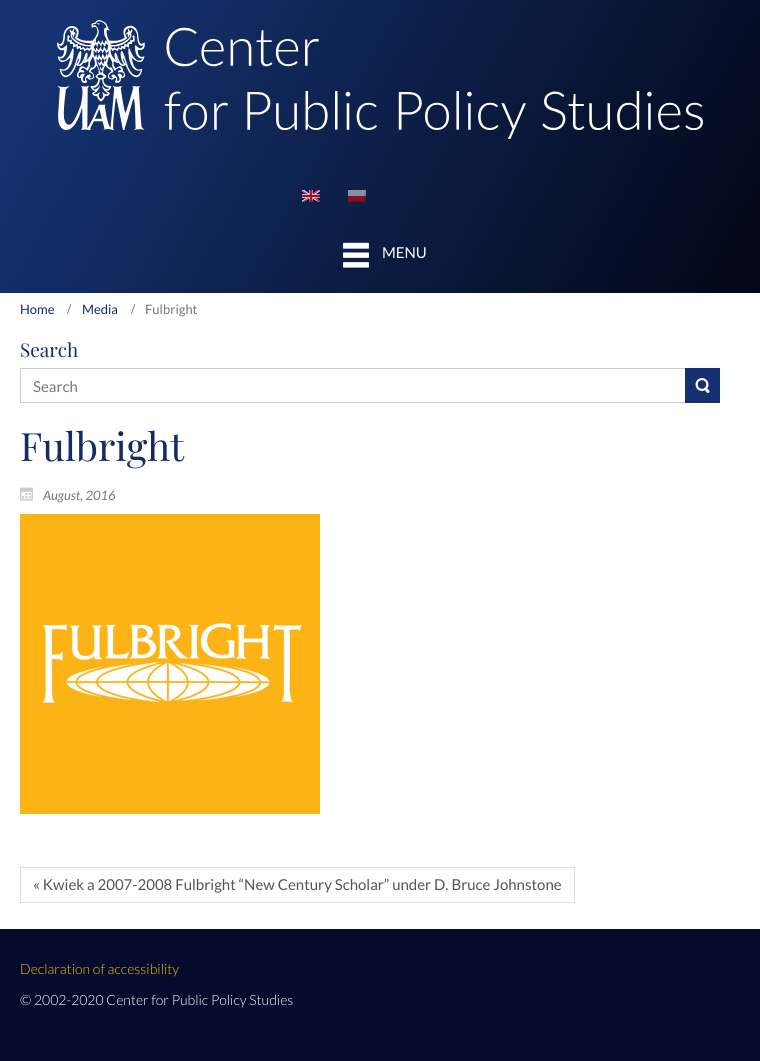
#include <cairo.h>
#include <math.h>
#include <stddef.h>


static void ink(cairo_t *ctx, unsigned color) {
    cairo_set_source_rgb(ctx, (color >> 16) / 255.0, (color >> 8 & 255) / 255.0, (color & 255) / 255.0);
}

static void paste(cairo_t *ctx, const char *path, double x, double y, double w, double h) {
    cairo_surface_t *image = cairo_image_surface_create_from_png(path);
    cairo_save(ctx);
    cairo_set_source_surface(ctx, image, x, y);
    cairo_rectangle(ctx, x, y, w, h);
    cairo_fill(ctx);
    cairo_restore(ctx);
    cairo_surface_destroy(image);
}

int main(void) {
    cairo_surface_t *surface = cairo_image_surface_create(CAIRO_FORMAT_RGB24, 760, 1061);
    cairo_t *ctx = cairo_create(surface);
    cairo_font_options_t *options = cairo_font_options_create();
    cairo_font_options_set_hint_metrics(options, CAIRO_HINT_METRICS_OFF);
    cairo_font_options_set_hint_style(options, CAIRO_HINT_STYLE_NONE);
    cairo_set_font_options(ctx, options);
    cairo_set_miter_limit(ctx, 4);
    cairo_pattern_t *gradient;
    ink(ctx, 0xFFFFFF);
    cairo_paint(ctx);
    gradient = cairo_pattern_create_linear(733, 342, 27, -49);
    cairo_pattern_add_color_stop_rgba(gradient, 0, 0.012, 0.024, 0.086, 1);
    cairo_pattern_add_color_stop_rgba(gradient, 0.92, 0.082, 0.2, 0.447, 1);
    cairo_set_source(ctx, gradient);
    cairo_pattern_destroy(gradient);
    cairo_rectangle(ctx, 0, 0, 760, 293);
    cairo_fill(ctx);
    paste(ctx, "media/1.png", 57, 20, 646, 119);
    paste(ctx, "media/2.png", 302, 190, 18, 12);
    paste(ctx, "media/3.png", 348, 190, 18, 12);
    paste(ctx, "media/4.png", 343, 242, 26, 26);
    cairo_select_font_face(ctx, "Lato", CAIRO_FONT_SLANT_NORMAL, CAIRO_FONT_WEIGHT_NORMAL);
    cairo_set_font_size(ctx, 15);
    ink(ctx, 0xFFFFFF);
    cairo_move_to(ctx, 382, 258);
    cairo_show_text(ctx, "MENU");
    cairo_set_font_size(ctx, 13);
    ink(ctx, 0x132B66);
    cairo_move_to(ctx, 20, 314);
    cairo_show_text(ctx, "Home");
    cairo_select_font_face(ctx, "Liberation Serif", CAIRO_FONT_SLANT_NORMAL, CAIRO_FONT_WEIGHT_NORMAL);
    cairo_set_font_size(ctx, 15);
    ink(ctx, 0x555555);
    cairo_move_to(ctx, 67, 314);
    cairo_show_text(ctx, "/");
    cairo_select_font_face(ctx, "Lato", CAIRO_FONT_SLANT_NORMAL, CAIRO_FONT_WEIGHT_NORMAL);
    cairo_set_font_size(ctx, 13);
    ink(ctx, 0x132B66);
    cairo_move_to(ctx, 82, 314);
    cairo_show_text(ctx, "Media");
    cairo_select_font_face(ctx, "Liberation Serif", CAIRO_FONT_SLANT_NORMAL, CAIRO_FONT_WEIGHT_NORMAL);
    cairo_set_font_size(ctx, 15);
    ink(ctx, 0x555555);
    cairo_move_to(ctx, 131, 314);
    cairo_show_text(ctx, "/");
    cairo_select_font_face(ctx, "Lato", CAIRO_FONT_SLANT_NORMAL, CAIRO_FONT_WEIGHT_NORMAL);
    cairo_set_font_size(ctx, 13);
    ink(ctx, 0x777777);
    cairo_move_to(ctx, 145, 314);
    cairo_show_text(ctx, "Fulbright");
    cairo_select_font_face(ctx, "Playfair Display", CAIRO_FONT_SLANT_NORMAL, CAIRO_FONT_WEIGHT_NORMAL);
    cairo_set_font_size(ctx, 19);
    ink(ctx, 0x132B66);
    cairo_move_to(ctx, 20, 357);
    cairo_show_text(ctx, "Search");
    cairo_rectangle(ctx, 20.5, 368.5, 699, 34);
    ink(ctx, 0xCCCCCC);
    cairo_set_line_width(ctx, 1);
    cairo_stroke(ctx);
    cairo_select_font_face(ctx, "Lato", CAIRO_FONT_SLANT_NORMAL, CAIRO_FONT_WEIGHT_NORMAL);
    cairo_set_font_size(ctx, 15);
    ink(ctx, 0x777777);
    cairo_move_to(ctx, 33, 392);
    cairo_show_text(ctx, "Search");
    ink(ctx, 0x152F70);
    cairo_rectangle(ctx, 685, 368, 35, 35);
    cairo_fill(ctx);
    paste(ctx, "media/5.png", 695, 378, 15, 15);
    cairo_select_font_face(ctx, "Playfair Display", CAIRO_FONT_SLANT_NORMAL, CAIRO_FONT_WEIGHT_NORMAL);
    cairo_set_font_size(ctx, 39);
    ink(ctx, 0x132B66);
    cairo_move_to(ctx, 20, 461);
    cairo_show_text(ctx, "Fulbright");
    paste(ctx, "media/6.png", 20, 487, 13, 14);
    cairo_select_font_face(ctx, "Lato", CAIRO_FONT_SLANT_ITALIC, CAIRO_FONT_WEIGHT_NORMAL);
    cairo_set_font_size(ctx, 13);
    ink(ctx, 0x777777);
    cairo_move_to(ctx, 43, 500);
    cairo_show_text(ctx, "August, 2016");
    paste(ctx, "media/7.png", 20, 514, 300, 300);
    cairo_rectangle(ctx, 20.5, 867.5, 554, 35);
    ink(ctx, 0xDDDDDD);
    cairo_stroke(ctx);
    cairo_select_font_face(ctx, "Lato", CAIRO_FONT_SLANT_NORMAL, CAIRO_FONT_WEIGHT_NORMAL);
    cairo_set_font_size(ctx, 15);
    ink(ctx, 0x555555);
    cairo_move_to(ctx, 33, 890);
    cairo_show_text(ctx, "« Kwiek a 2007-2008 Fulbright “New Century Scholar” under D. Bruce Johnstone");
    ink(ctx, 0x060B2D);
    cairo_rectangle(ctx, 0, 929, 760, 132);
    cairo_fill(ctx);
    cairo_select_font_face(ctx, "Lato Light", CAIRO_FONT_SLANT_NORMAL, CAIRO_FONT_WEIGHT_NORMAL);
    cairo_set_font_size(ctx, 14);
    ink(ctx, 0xF5C000);
    cairo_move_to(ctx, 20, 974);
    cairo_show_text(ctx, "Declaration of accessibility");
    ink(ctx, 0xFFFFFF);
    cairo_move_to(ctx, 20, 1005);
    cairo_show_text(ctx, "© 2002-2020 Center for Public Policy Studies");
    cairo_surface_write_to_png(surface, "image.png");
    cairo_font_options_destroy(options);
    cairo_destroy(ctx);
    cairo_surface_destroy(surface);
    return 0;
}
